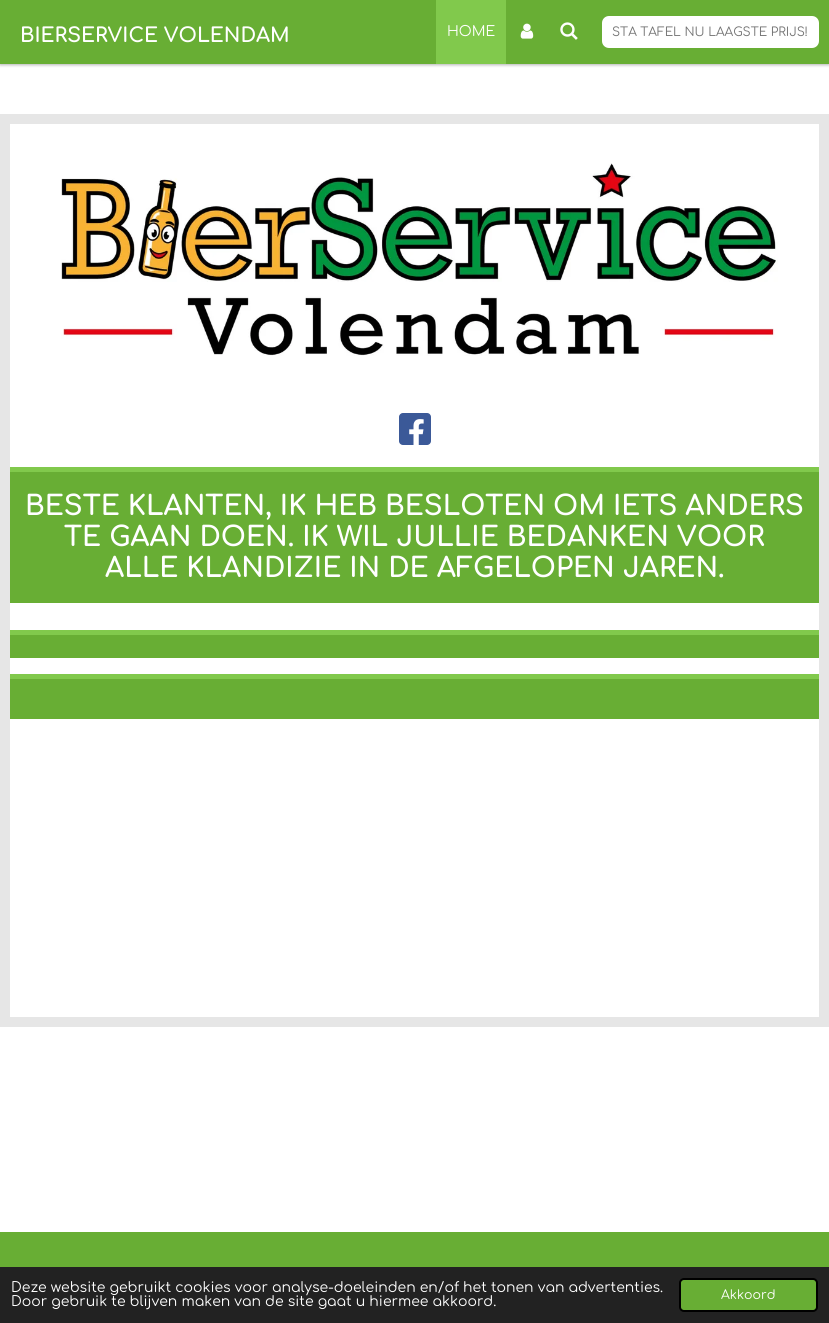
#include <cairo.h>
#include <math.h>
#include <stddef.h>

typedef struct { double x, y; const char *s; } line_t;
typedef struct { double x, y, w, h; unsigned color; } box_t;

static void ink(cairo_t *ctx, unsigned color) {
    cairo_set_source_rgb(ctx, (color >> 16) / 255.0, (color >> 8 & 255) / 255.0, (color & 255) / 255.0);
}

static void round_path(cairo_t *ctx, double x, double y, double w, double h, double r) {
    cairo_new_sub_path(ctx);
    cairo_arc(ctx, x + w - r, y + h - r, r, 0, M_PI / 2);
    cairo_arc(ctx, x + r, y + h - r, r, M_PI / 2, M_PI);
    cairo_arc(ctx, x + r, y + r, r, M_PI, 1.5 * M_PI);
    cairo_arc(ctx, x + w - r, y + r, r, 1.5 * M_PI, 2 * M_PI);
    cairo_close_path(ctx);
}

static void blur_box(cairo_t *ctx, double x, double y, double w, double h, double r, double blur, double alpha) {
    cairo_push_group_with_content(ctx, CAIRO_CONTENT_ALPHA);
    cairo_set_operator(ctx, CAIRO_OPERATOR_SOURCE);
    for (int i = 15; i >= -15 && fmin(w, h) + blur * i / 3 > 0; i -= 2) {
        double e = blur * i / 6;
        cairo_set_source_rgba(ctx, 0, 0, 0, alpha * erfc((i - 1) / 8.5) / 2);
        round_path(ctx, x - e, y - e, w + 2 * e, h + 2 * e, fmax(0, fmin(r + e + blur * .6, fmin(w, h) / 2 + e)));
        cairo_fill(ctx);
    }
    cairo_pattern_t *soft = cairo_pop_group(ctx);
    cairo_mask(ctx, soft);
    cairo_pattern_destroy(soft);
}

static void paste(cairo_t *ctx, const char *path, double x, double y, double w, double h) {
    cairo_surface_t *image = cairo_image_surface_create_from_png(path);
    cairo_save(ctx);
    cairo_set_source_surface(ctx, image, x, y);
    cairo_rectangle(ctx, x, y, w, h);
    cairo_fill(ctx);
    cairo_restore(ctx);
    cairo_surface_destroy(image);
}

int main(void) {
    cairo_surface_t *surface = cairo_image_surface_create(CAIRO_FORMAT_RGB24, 829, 1323);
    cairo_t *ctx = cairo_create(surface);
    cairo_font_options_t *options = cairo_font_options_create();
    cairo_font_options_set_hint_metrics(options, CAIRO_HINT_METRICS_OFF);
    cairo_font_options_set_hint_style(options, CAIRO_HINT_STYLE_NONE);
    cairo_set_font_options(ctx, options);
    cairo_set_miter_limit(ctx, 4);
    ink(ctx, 0xFFFFFF);
    cairo_paint(ctx);
    ink(ctx, 0x000000);
    blur_box(ctx, 0, 1, 829, 64, 0, 1.5, 0.3);
    ink(ctx, 0x68AE34);
    cairo_rectangle(ctx, 0, 0, 829, 64);
    cairo_fill(ctx);
    cairo_select_font_face(ctx, "Comfortaa", CAIRO_FONT_SLANT_NORMAL, CAIRO_FONT_WEIGHT_BOLD);
    cairo_set_font_size(ctx, 20);
    ink(ctx, 0xFFFFFF);
    cairo_move_to(ctx, 20, 42);
    cairo_show_text(ctx, "BIERSERVICE VOLENDAM");
    ink(ctx, 0x81C94C);
    cairo_rectangle(ctx, 436, 0, 70, 64);
    cairo_fill(ctx);
    cairo_select_font_face(ctx, "Comfortaa", CAIRO_FONT_SLANT_NORMAL, CAIRO_FONT_WEIGHT_NORMAL);
    cairo_set_font_size(ctx, 14);
    ink(ctx, 0xFFFFFF);
    cairo_move_to(ctx, 447, 36);
    cairo_show_text(ctx, "HOME");
    paste(ctx, "media/1.png", 520, 23, 14, 16);
    paste(ctx, "media/2.png", 560, 22, 18, 18);
    round_path(ctx, 602, 16, 217, 32, 7);
    cairo_fill(ctx);
    cairo_set_font_size(ctx, 12.25);
    ink(ctx, 0x737373);
    cairo_move_to(ctx, 612, 36);
    cairo_show_text(ctx, "STA TAFEL NU LAAGSTE PRIJS!");
    ink(ctx, 0xE6E6E6);
    cairo_rectangle(ctx, 0, 114, 829, 913);
    cairo_fill(ctx);
    ink(ctx, 0xFFFFFF);
    cairo_rectangle(ctx, 10, 124, 809, 893);
    cairo_fill(ctx);
    paste(ctx, "media/3.png", 61, 163, 717, 193);
    ink(ctx, 0x3B5998);
    round_path(ctx, 399, 413, 32, 32, 4);
    cairo_fill(ctx);
    paste(ctx, "media/4.png", 409, 419, 15, 26);
    ink(ctx, 0x68AE34);
    cairo_rectangle(ctx, 10, 472, 809, 131);
    cairo_fill(ctx);
    ink(ctx, 0x81C94C);
    cairo_rectangle(ctx, 10, 467, 809, 5);
    cairo_fill(ctx);
    cairo_select_font_face(ctx, "Comfortaa", CAIRO_FONT_SLANT_NORMAL, CAIRO_FONT_WEIGHT_BOLD);
    cairo_set_font_size(ctx, 27.3);
    ink(ctx, 0xFFFFFF);
    {
        static const line_t items[] = {
            {25, 515, "BESTE KLANTEN, IK HEB BESLOTEN OM IETS ANDERS"},
            {64, 546, "TE GAAN DOEN. IK WIL JULLIE BEDANKEN VOOR"},
            {105, 577, "ALLE KLANDIZIE IN DE AFGELOPEN JAREN."},
        };
        for (size_t i = 0; i < sizeof items / sizeof *items; i++) {
            cairo_move_to(ctx, items[i].x, items[i].y);
            cairo_show_text(ctx, items[i].s);
        }
    }
    {
        static const box_t items[] = {
            {10, 635, 809, 23, 0x68AE34},
            {10, 630, 809, 5, 0x81C94C},
            {10, 679, 809, 40, 0x68AE34},
            {10, 674, 809, 5, 0x81C94C},
            {0, 1232, 829, 35, 0x68AE34},
            {0, 1267, 829, 56, 0x222222},
        };
        for (size_t i = 0; i < sizeof items / sizeof *items; i++) {
            ink(ctx, items[i].color);
            cairo_rectangle(ctx, items[i].x, items[i].y, items[i].w, items[i].h);
            cairo_fill(ctx);
        }
    }
    cairo_select_font_face(ctx, "Comfortaa", CAIRO_FONT_SLANT_NORMAL, CAIRO_FONT_WEIGHT_NORMAL);
    cairo_set_font_size(ctx, 14);
    ink(ctx, 0xFFFFFF);
    cairo_move_to(ctx, 11, 1292);
    cairo_show_text(ctx, "Deze website gebruikt cookies voor analyse-doeleinden en/of het tonen van advertenties.");
    cairo_move_to(ctx, 11, 1306);
    cairo_show_text(ctx, "Door gebruik te blijven maken van de site gaat u hiermee akkoord.");
    ink(ctx, 0x68AE34);
    round_path(ctx, 680, 1279, 137, 32, 4);
    cairo_fill_preserve(ctx);
    ink(ctx, 0x000000);
    cairo_stroke(ctx);
    cairo_set_font_size(ctx, 12.5);
    ink(ctx, 0xFFFFFF);
    cairo_move_to(ctx, 721, 1299);
    cairo_show_text(ctx, "Akkoord");
    cairo_surface_write_to_png(surface, "image.png");
    cairo_font_options_destroy(options);
    cairo_destroy(ctx);
    cairo_surface_destroy(surface);
    return 0;
}
